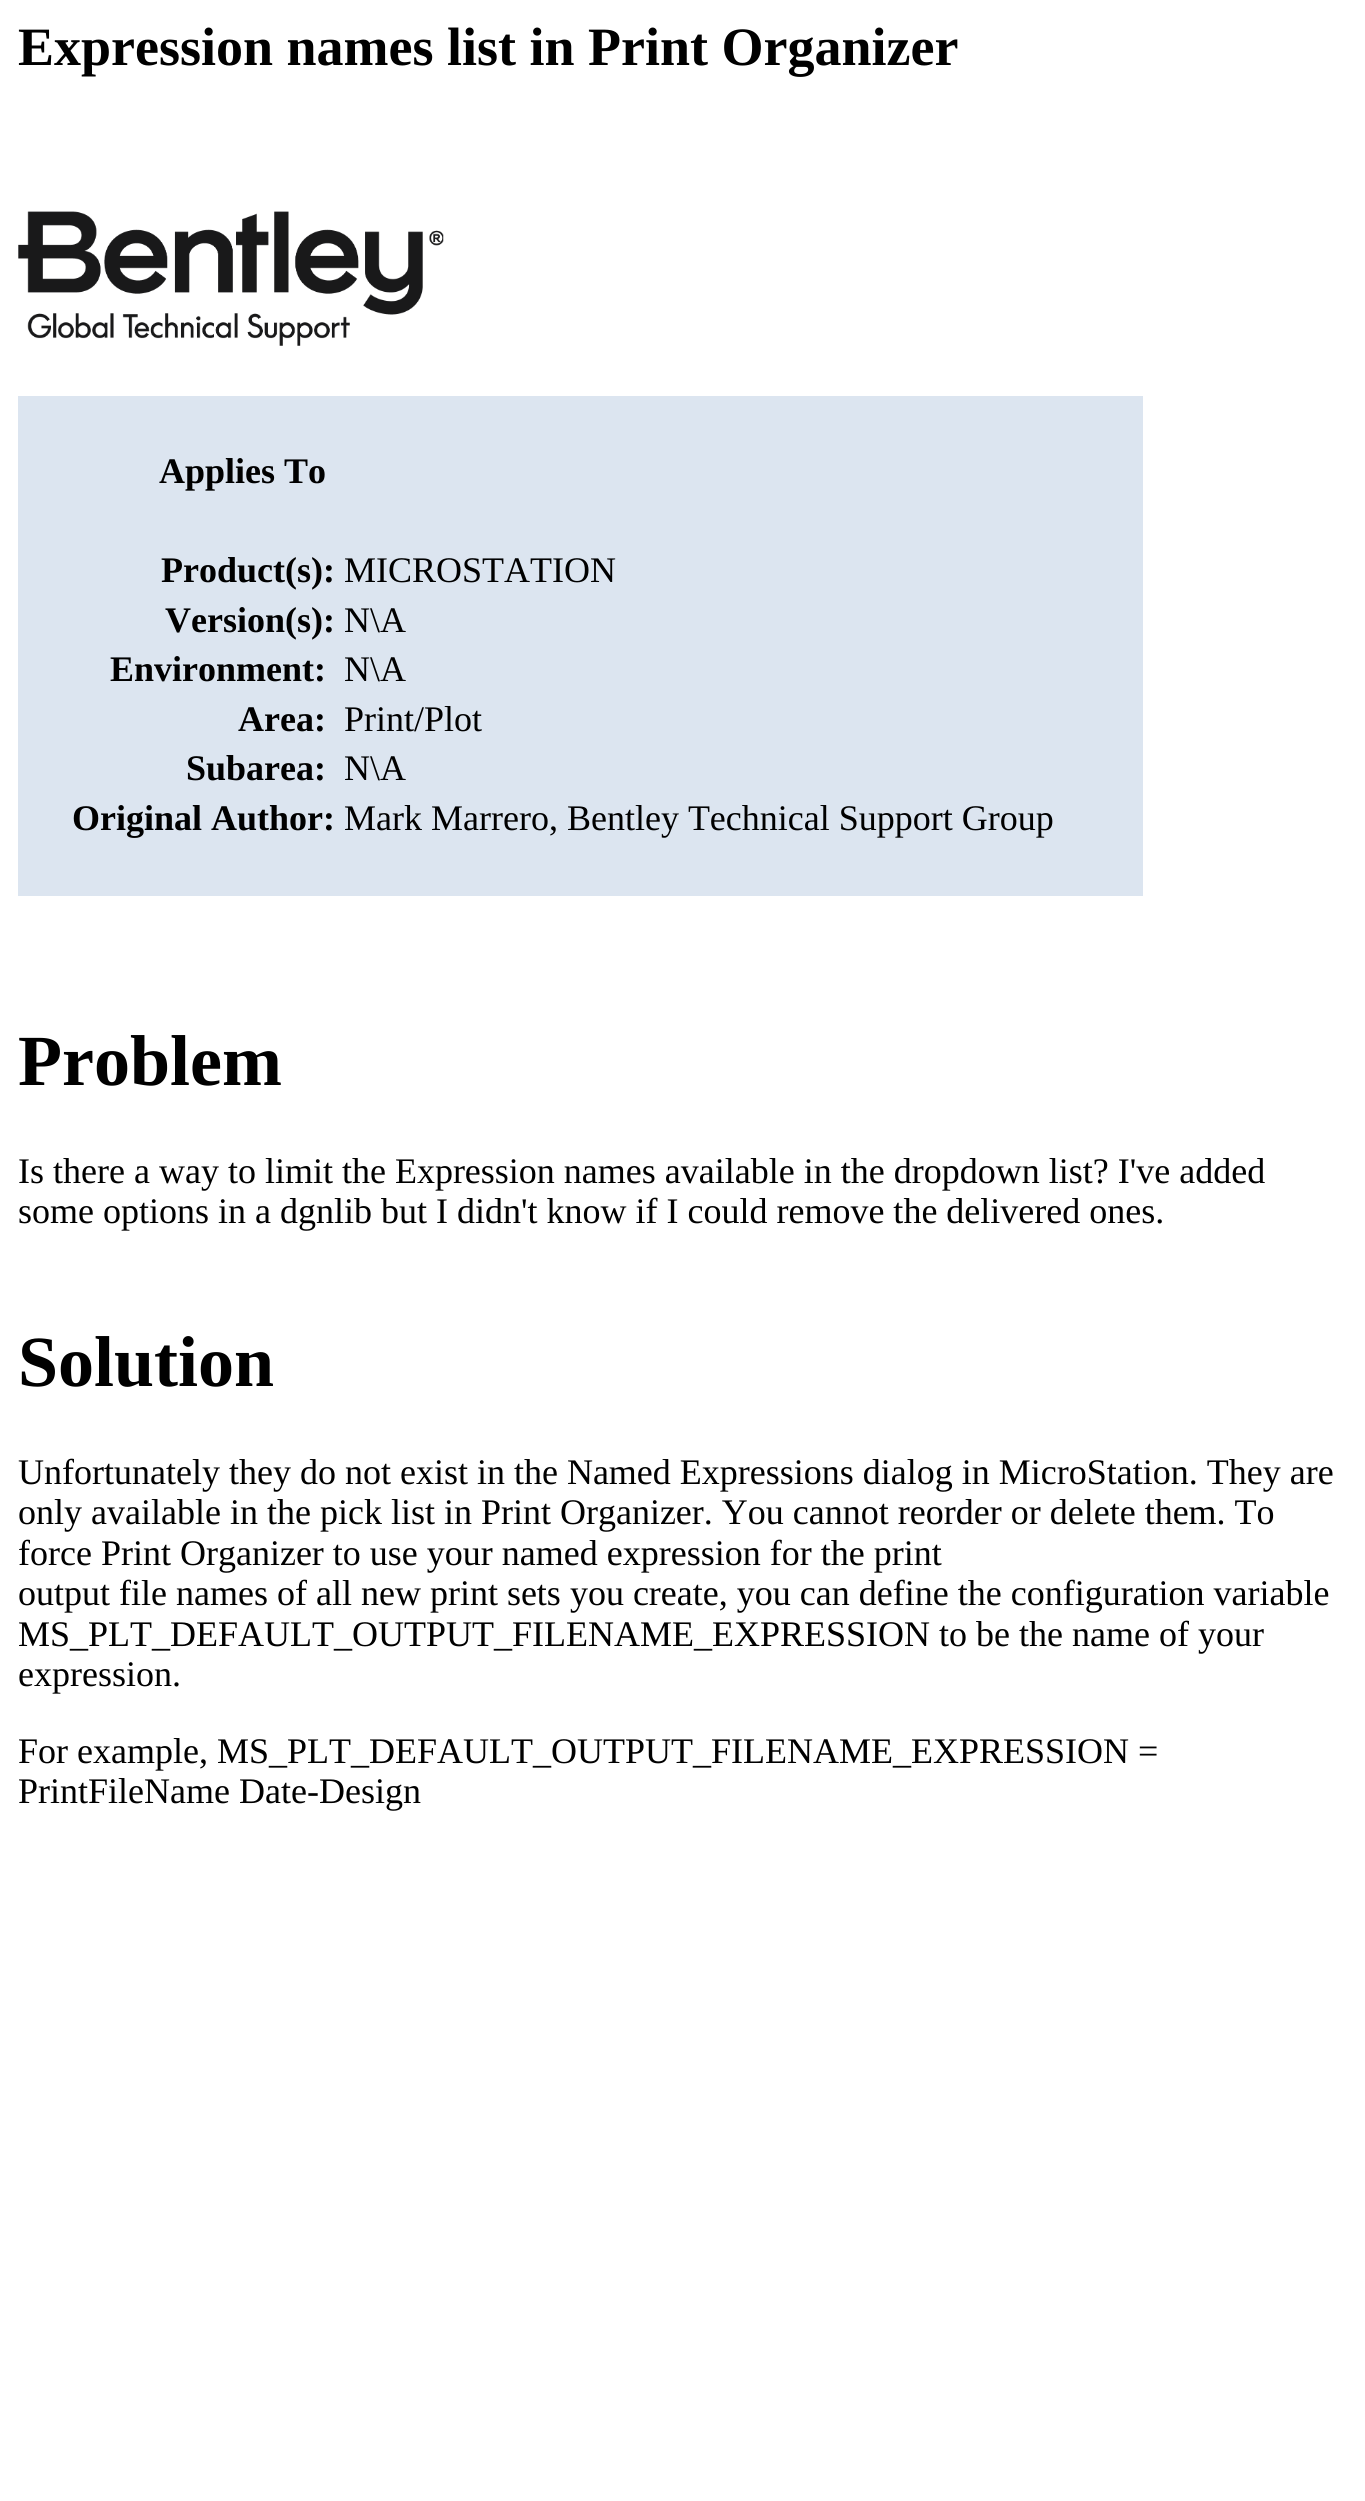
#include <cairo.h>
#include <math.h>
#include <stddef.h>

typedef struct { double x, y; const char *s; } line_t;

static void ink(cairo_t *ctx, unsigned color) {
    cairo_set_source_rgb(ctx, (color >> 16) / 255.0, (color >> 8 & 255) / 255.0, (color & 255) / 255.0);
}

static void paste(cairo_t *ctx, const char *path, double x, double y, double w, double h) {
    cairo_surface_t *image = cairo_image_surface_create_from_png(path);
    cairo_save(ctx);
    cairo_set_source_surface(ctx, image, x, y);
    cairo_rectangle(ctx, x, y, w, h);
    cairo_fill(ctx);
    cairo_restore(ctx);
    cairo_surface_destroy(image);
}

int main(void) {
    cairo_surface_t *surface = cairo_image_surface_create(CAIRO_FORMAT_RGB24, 1365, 2501);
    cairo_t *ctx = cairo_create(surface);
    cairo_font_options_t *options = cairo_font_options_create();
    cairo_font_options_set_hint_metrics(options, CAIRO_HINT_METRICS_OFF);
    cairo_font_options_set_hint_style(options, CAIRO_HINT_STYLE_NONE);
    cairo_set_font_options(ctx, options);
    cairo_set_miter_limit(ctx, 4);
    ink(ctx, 0xFFFFFF);
    cairo_paint(ctx);
    cairo_select_font_face(ctx, "Liberation Serif", CAIRO_FONT_SLANT_NORMAL, CAIRO_FONT_WEIGHT_BOLD);
    cairo_set_font_size(ctx, 54);
    ink(ctx, 0x000000);
    cairo_move_to(ctx, 18, 65);
    cairo_show_text(ctx, "Expression names list in Print Organizer");
    paste(ctx, "media/1.png", 18, 211, 426, 135);
    ink(ctx, 0xDCE5F0);
    cairo_rectangle(ctx, 18, 396, 1125, 500);
    cairo_fill(ctx);
    cairo_set_font_size(ctx, 36);
    ink(ctx, 0x000000);
    cairo_move_to(ctx, 159, 483);
    cairo_show_text(ctx, "Applies To");
    cairo_move_to(ctx, 161, 582);
    cairo_show_text(ctx, "Product(s):");
    cairo_select_font_face(ctx, "Liberation Serif", CAIRO_FONT_SLANT_NORMAL, CAIRO_FONT_WEIGHT_NORMAL);
    cairo_move_to(ctx, 344, 582);
    cairo_show_text(ctx, "MICROSTATION");
    cairo_select_font_face(ctx, "Liberation Serif", CAIRO_FONT_SLANT_NORMAL, CAIRO_FONT_WEIGHT_BOLD);
    cairo_move_to(ctx, 165, 632);
    cairo_show_text(ctx, "Version(s):");
    cairo_select_font_face(ctx, "Liberation Serif", CAIRO_FONT_SLANT_NORMAL, CAIRO_FONT_WEIGHT_NORMAL);
    cairo_move_to(ctx, 344, 632);
    cairo_show_text(ctx, "N\\A");
    cairo_select_font_face(ctx, "Liberation Serif", CAIRO_FONT_SLANT_NORMAL, CAIRO_FONT_WEIGHT_BOLD);
    cairo_move_to(ctx, 110, 681);
    cairo_show_text(ctx, "Environment:");
    cairo_select_font_face(ctx, "Liberation Serif", CAIRO_FONT_SLANT_NORMAL, CAIRO_FONT_WEIGHT_NORMAL);
    cairo_move_to(ctx, 344, 681);
    cairo_show_text(ctx, "N\\A");
    cairo_select_font_face(ctx, "Liberation Serif", CAIRO_FONT_SLANT_NORMAL, CAIRO_FONT_WEIGHT_BOLD);
    cairo_move_to(ctx, 238, 731);
    cairo_show_text(ctx, "Area:");
    cairo_select_font_face(ctx, "Liberation Serif", CAIRO_FONT_SLANT_NORMAL, CAIRO_FONT_WEIGHT_NORMAL);
    cairo_move_to(ctx, 344, 731);
    cairo_show_text(ctx, "Print/Plot");
    cairo_select_font_face(ctx, "Liberation Serif", CAIRO_FONT_SLANT_NORMAL, CAIRO_FONT_WEIGHT_BOLD);
    cairo_move_to(ctx, 186, 780);
    cairo_show_text(ctx, "Subarea:");
    cairo_select_font_face(ctx, "Liberation Serif", CAIRO_FONT_SLANT_NORMAL, CAIRO_FONT_WEIGHT_NORMAL);
    cairo_move_to(ctx, 344, 780);
    cairo_show_text(ctx, "N\\A");
    cairo_select_font_face(ctx, "Liberation Serif", CAIRO_FONT_SLANT_NORMAL, CAIRO_FONT_WEIGHT_BOLD);
    cairo_move_to(ctx, 72, 830);
    cairo_show_text(ctx, "Original Author:");
    cairo_select_font_face(ctx, "Liberation Serif", CAIRO_FONT_SLANT_NORMAL, CAIRO_FONT_WEIGHT_NORMAL);
    cairo_move_to(ctx, 344, 830);
    cairo_show_text(ctx, "Mark Marrero, Bentley Technical Support Group");
    cairo_select_font_face(ctx, "Liberation Serif", CAIRO_FONT_SLANT_NORMAL, CAIRO_FONT_WEIGHT_BOLD);
    cairo_set_font_size(ctx, 72);
    cairo_move_to(ctx, 18, 1085);
    cairo_show_text(ctx, "Problem");
    cairo_select_font_face(ctx, "Liberation Serif", CAIRO_FONT_SLANT_NORMAL, CAIRO_FONT_WEIGHT_NORMAL);
    cairo_set_font_size(ctx, 36);
    cairo_move_to(ctx, 18, 1183);
    cairo_show_text(ctx, "Is there a way to limit the Expression names available in the dropdown list? I've added");
    cairo_move_to(ctx, 18, 1223);
    cairo_show_text(ctx, "some options in a dgnlib but I didn't know if I could remove the delivered ones.");
    cairo_select_font_face(ctx, "Liberation Serif", CAIRO_FONT_SLANT_NORMAL, CAIRO_FONT_WEIGHT_BOLD);
    cairo_set_font_size(ctx, 72);
    cairo_move_to(ctx, 18, 1386);
    cairo_show_text(ctx, "Solution");
    cairo_select_font_face(ctx, "Liberation Serif", CAIRO_FONT_SLANT_NORMAL, CAIRO_FONT_WEIGHT_NORMAL);
    cairo_set_font_size(ctx, 36);
    {
        static const line_t items[] = {
            {18, 1484, "Unfortunately they do not exist in the Named Expressions dialog in MicroStation. They are"},
            {18, 1524, "only available in the pick list in Print Organizer. You cannot reorder or delete them. To"},
            {18, 1565, "force Print Organizer to use your named expression for the print"},
            {18, 1605, "output file names of all new print sets you create, you can define the configuration variable"},
            {18, 1646, "MS_PLT_DEFAULT_OUTPUT_FILENAME_EXPRESSION to be the name of your"},
            {18, 1686, "expression."},
            {18, 1763, "For example, MS_PLT_DEFAULT_OUTPUT_FILENAME_EXPRESSION ="},
            {18, 1803, "PrintFileName Date-Design"},
        };
        for (size_t i = 0; i < sizeof items / sizeof *items; i++) {
            cairo_move_to(ctx, items[i].x, items[i].y);
            cairo_show_text(ctx, items[i].s);
        }
    }
    cairo_surface_write_to_png(surface, "image.png");
    cairo_font_options_destroy(options);
    cairo_destroy(ctx);
    cairo_surface_destroy(surface);
    return 0;
}
